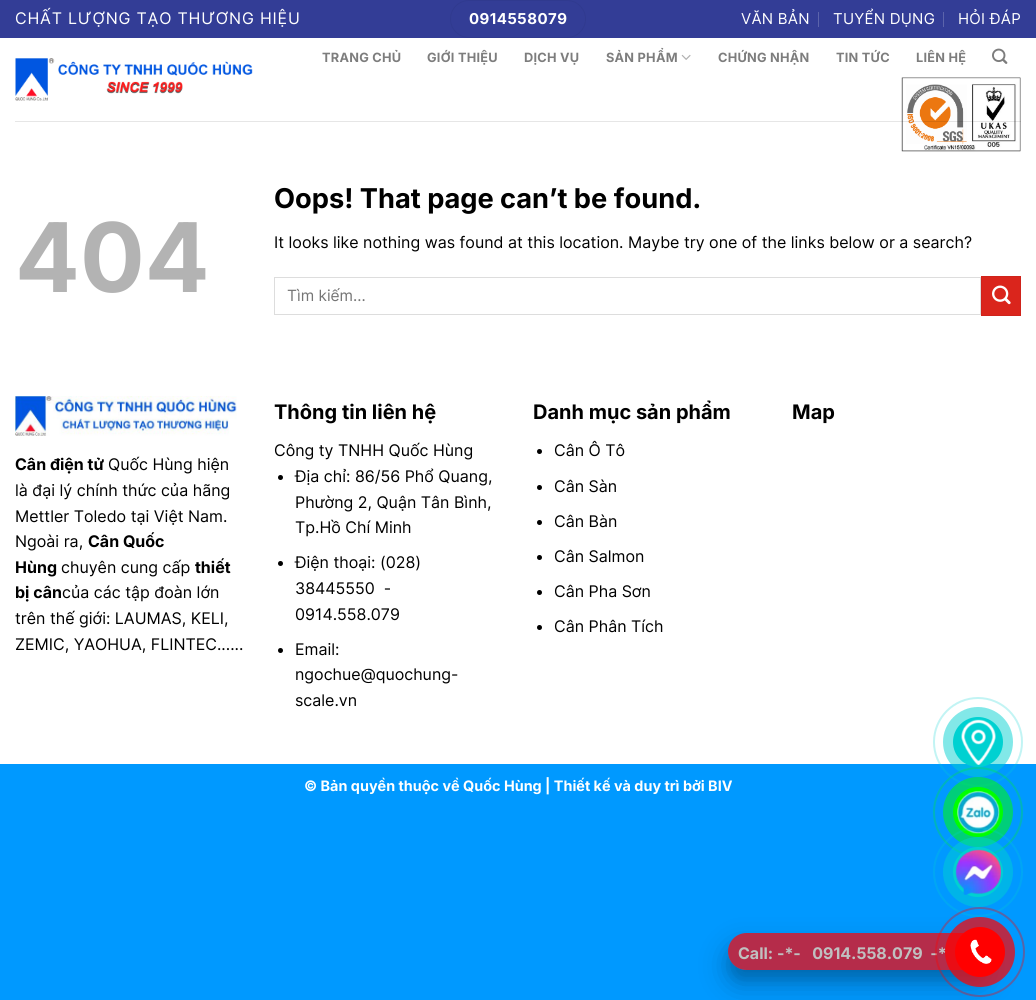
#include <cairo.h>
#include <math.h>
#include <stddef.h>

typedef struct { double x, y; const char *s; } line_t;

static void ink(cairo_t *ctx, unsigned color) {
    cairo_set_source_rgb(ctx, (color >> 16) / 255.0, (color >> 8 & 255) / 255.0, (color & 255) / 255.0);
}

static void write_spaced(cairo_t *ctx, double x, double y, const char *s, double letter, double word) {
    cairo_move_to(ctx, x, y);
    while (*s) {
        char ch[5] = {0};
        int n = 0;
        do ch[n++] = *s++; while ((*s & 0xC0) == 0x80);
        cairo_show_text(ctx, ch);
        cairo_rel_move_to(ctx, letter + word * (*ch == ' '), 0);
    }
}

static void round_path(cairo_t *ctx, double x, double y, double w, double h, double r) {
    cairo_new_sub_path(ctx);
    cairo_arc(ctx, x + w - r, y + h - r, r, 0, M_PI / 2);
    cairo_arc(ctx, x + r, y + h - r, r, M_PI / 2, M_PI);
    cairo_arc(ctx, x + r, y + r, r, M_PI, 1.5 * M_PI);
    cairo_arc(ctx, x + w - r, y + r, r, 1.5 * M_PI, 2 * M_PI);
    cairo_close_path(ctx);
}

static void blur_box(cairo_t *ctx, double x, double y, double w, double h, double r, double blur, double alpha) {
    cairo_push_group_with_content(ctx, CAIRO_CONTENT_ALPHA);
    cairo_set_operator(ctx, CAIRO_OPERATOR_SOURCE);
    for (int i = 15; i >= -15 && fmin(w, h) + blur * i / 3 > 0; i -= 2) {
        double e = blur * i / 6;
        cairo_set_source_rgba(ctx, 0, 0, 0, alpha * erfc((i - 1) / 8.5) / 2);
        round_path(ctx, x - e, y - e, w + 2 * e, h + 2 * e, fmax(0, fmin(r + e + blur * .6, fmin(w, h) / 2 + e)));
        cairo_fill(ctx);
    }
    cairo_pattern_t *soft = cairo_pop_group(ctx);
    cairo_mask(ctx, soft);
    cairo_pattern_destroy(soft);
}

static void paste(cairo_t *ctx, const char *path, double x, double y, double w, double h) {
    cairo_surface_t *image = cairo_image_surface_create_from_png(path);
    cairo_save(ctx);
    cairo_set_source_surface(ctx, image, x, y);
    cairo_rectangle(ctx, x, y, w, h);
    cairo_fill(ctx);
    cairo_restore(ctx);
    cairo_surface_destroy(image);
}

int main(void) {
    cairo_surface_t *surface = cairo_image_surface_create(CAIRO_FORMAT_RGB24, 1036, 1000);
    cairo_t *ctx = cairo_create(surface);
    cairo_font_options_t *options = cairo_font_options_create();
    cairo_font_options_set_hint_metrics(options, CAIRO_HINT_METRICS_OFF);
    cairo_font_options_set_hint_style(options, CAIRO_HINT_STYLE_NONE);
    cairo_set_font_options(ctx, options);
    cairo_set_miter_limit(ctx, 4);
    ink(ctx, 0x0099FF);
    cairo_paint(ctx);
    ink(ctx, 0xFFFFFF);
    cairo_rectangle(ctx, 0, 38, 1036, 726);
    cairo_fill(ctx);
    ink(ctx, 0x333D96);
    cairo_rectangle(ctx, 0, 0, 1036, 38);
    cairo_fill(ctx);
    cairo_select_font_face(ctx, "Inter", CAIRO_FONT_SLANT_NORMAL, CAIRO_FONT_WEIGHT_NORMAL);
    cairo_set_font_size(ctx, 16);
    ink(ctx, 0xFFFFFF);
    write_spaced(ctx, 15, 24, "CHẤT LƯỢNG TẠO THƯƠNG HIỆU", 0.8, 0);
    round_path(ctx, 450.5, 0.5, 135, 37, 18.5);
    ink(ctx, 0x303A8F);
    cairo_set_line_width(ctx, 1);
    cairo_stroke(ctx);
    cairo_select_font_face(ctx, "Inter", CAIRO_FONT_SLANT_NORMAL, CAIRO_FONT_WEIGHT_BOLD);
    cairo_set_font_size(ctx, 15);
    ink(ctx, 0xFFFFFF);
    write_spaced(ctx, 469, 24, "0914558079", 0.5, 0);
    cairo_select_font_face(ctx, "Inter", CAIRO_FONT_SLANT_NORMAL, CAIRO_FONT_WEIGHT_NORMAL);
    write_spaced(ctx, 741, 24, "VĂN BẢN", 0.25, 0);
    ink(ctx, 0x5C64AB);
    cairo_rectangle(ctx, 818, 12, 1, 15);
    cairo_fill(ctx);
    ink(ctx, 0xFFFFFF);
    write_spaced(ctx, 833, 24, "TUYỂN DỤNG", 0.25, 0);
    ink(ctx, 0x5C64AB);
    cairo_rectangle(ctx, 943, 12, 1, 15);
    cairo_fill(ctx);
    ink(ctx, 0xFFFFFF);
    write_spaced(ctx, 958, 24, "HỎI ĐÁP", 0.25, 0);
    cairo_select_font_face(ctx, "Inter", CAIRO_FONT_SLANT_NORMAL, CAIRO_FONT_WEIGHT_BOLD);
    cairo_set_font_size(ctx, 12.75);
    ink(ctx, 0x7D7D7D);
    {
        static const line_t items[] = {
            {322, 62, "TRANG CHỦ"},
            {427, 62, "GIỚI THIỆU"},
            {524, 62, "DỊCH VỤ"},
            {606, 62, "SẢN PHẨM"},
        };
        for (size_t i = 0; i < sizeof items / sizeof *items; i++) {
            write_spaced(ctx, items[i].x, items[i].y, items[i].s, 0.25, 0);
        }
    }
    paste(ctx, "media/1.png", 681, 54, 10, 6);
    {
        static const line_t items[] = {
            {718, 62, "CHỨNG NHẬN"},
            {836, 62, "TIN TỨC"},
            {916, 62, "LIÊN HỆ"},
        };
        for (size_t i = 0; i < sizeof items / sizeof *items; i++) {
            write_spaced(ctx, items[i].x, items[i].y, items[i].s, 0.25, 0);
        }
    }
    paste(ctx, "media/2.png", 992, 48, 16, 16);
    paste(ctx, "media/3.png", 901, 77, 120, 75);
    paste(ctx, "media/4.png", 15, 58, 238, 43);
    cairo_set_source_rgba(ctx, 0, 0, 0, 0.1);
    cairo_rectangle(ctx, 15, 121, 1006, 1);
    cairo_fill(ctx);
    cairo_set_font_size(ctx, 96);
    ink(ctx, 0xB3B3B3);
    cairo_move_to(ctx, 15, 292);
    cairo_show_text(ctx, "404");
    cairo_set_font_size(ctx, 27.25);
    ink(ctx, 0x000000);
    cairo_move_to(ctx, 274, 208);
    cairo_show_text(ctx, "Oops! That page can’t be found.");
    cairo_select_font_face(ctx, "Inter", CAIRO_FONT_SLANT_NORMAL, CAIRO_FONT_WEIGHT_NORMAL);
    cairo_set_font_size(ctx, 16);
    cairo_move_to(ctx, 274, 248);
    cairo_show_text(ctx, "It looks like nothing was found at this location. Maybe try one of the links below or a search?");
    cairo_rectangle(ctx, 274.5, 277.5, 706, 37);
    ink(ctx, 0xDDDDDD);
    cairo_stroke(ctx);
    cairo_set_font_size(ctx, 15.5);
    ink(ctx, 0x757575);
    cairo_move_to(ctx, 287, 301);
    cairo_show_text(ctx, "Tìm kiếm…");
    ink(ctx, 0xDA251C);
    cairo_rectangle(ctx, 981.5, 276.5, 39, 39);
    cairo_fill_preserve(ctx);
    ink(ctx, 0xCF231B);
    cairo_stroke(ctx);
    paste(ctx, "media/5.png", 992, 285, 19, 20);
    cairo_select_font_face(ctx, "Inter", CAIRO_FONT_SLANT_NORMAL, CAIRO_FONT_WEIGHT_BOLD);
    cairo_set_font_size(ctx, 20);
    ink(ctx, 0x000000);
    cairo_move_to(ctx, 274, 419);
    cairo_show_text(ctx, "Thông tin liên hệ");
    cairo_select_font_face(ctx, "Inter", CAIRO_FONT_SLANT_NORMAL, CAIRO_FONT_WEIGHT_NORMAL);
    cairo_set_font_size(ctx, 16);
    cairo_move_to(ctx, 274, 456);
    cairo_show_text(ctx, "Công ty TNHH Quốc Hùng");
    cairo_new_path(ctx);
    cairo_arc(ctx, 280.5, 477.5, 2.5, 0, 2 * M_PI);
    cairo_fill(ctx);
    {
        static const line_t items[] = {
            {295, 482, "Địa chỉ: 86/56 Phổ Quang,"},
            {295, 508, "Phường 2, Quận Tân Bình,"},
            {295, 533, "Tp.Hồ Chí Minh"},
        };
        for (size_t i = 0; i < sizeof items / sizeof *items; i++) {
            cairo_move_to(ctx, items[i].x, items[i].y);
            cairo_show_text(ctx, items[i].s);
        }
    }
    cairo_new_path(ctx);
    cairo_arc(ctx, 280.5, 563.5, 2.5, 0, 2 * M_PI);
    cairo_fill(ctx);
    {
        static const line_t items[] = {
            {295, 568, "Điện thoại: (028)"},
            {295, 594, "38445550  -"},
            {295, 620, "0914.558.079"},
        };
        for (size_t i = 0; i < sizeof items / sizeof *items; i++) {
            cairo_move_to(ctx, items[i].x, items[i].y);
            cairo_show_text(ctx, items[i].s);
        }
    }
    cairo_new_path(ctx);
    cairo_arc(ctx, 280.5, 650.5, 2.5, 0, 2 * M_PI);
    cairo_fill(ctx);
    {
        static const line_t items[] = {
            {295, 655, "Email:"},
            {295, 680, "ngochue@quochung-"},
            {295, 706, "scale.vn"},
        };
        for (size_t i = 0; i < sizeof items / sizeof *items; i++) {
            cairo_move_to(ctx, items[i].x, items[i].y);
            cairo_show_text(ctx, items[i].s);
        }
    }
    cairo_select_font_face(ctx, "Inter", CAIRO_FONT_SLANT_NORMAL, CAIRO_FONT_WEIGHT_BOLD);
    cairo_set_font_size(ctx, 20);
    cairo_move_to(ctx, 533, 419);
    cairo_show_text(ctx, "Danh mục sản phẩm");
    cairo_new_path(ctx);
    cairo_arc(ctx, 539.5, 451.5, 2.5, 0, 2 * M_PI);
    cairo_fill(ctx);
    cairo_select_font_face(ctx, "Inter", CAIRO_FONT_SLANT_NORMAL, CAIRO_FONT_WEIGHT_NORMAL);
    cairo_set_font_size(ctx, 16);
    cairo_move_to(ctx, 554, 456);
    cairo_show_text(ctx, "Cân Ô Tô");
    cairo_new_path(ctx);
    cairo_arc(ctx, 539.5, 487.5, 2.5, 0, 2 * M_PI);
    cairo_fill(ctx);
    cairo_move_to(ctx, 554, 492);
    cairo_show_text(ctx, "Cân Sàn");
    cairo_new_path(ctx);
    cairo_arc(ctx, 539.5, 522.5, 2.5, 0, 2 * M_PI);
    cairo_fill(ctx);
    cairo_move_to(ctx, 554, 527);
    cairo_show_text(ctx, "Cân Bàn");
    cairo_new_path(ctx);
    cairo_arc(ctx, 539.5, 557.5, 2.5, 0, 2 * M_PI);
    cairo_fill(ctx);
    cairo_move_to(ctx, 554, 562);
    cairo_show_text(ctx, "Cân Salmon");
    cairo_new_path(ctx);
    cairo_arc(ctx, 539.5, 592.5, 2.5, 0, 2 * M_PI);
    cairo_fill(ctx);
    cairo_move_to(ctx, 554, 597);
    cairo_show_text(ctx, "Cân Pha Sơn");
    cairo_new_path(ctx);
    cairo_arc(ctx, 539.5, 627.5, 2.5, 0, 2 * M_PI);
    cairo_fill(ctx);
    cairo_move_to(ctx, 554, 632);
    cairo_show_text(ctx, "Cân Phân Tích");
    cairo_select_font_face(ctx, "Inter", CAIRO_FONT_SLANT_NORMAL, CAIRO_FONT_WEIGHT_BOLD);
    cairo_set_font_size(ctx, 20);
    cairo_move_to(ctx, 792, 419);
    cairo_show_text(ctx, "Map");
    paste(ctx, "media/6.png", 15, 396, 222, 40);
    cairo_set_font_size(ctx, 16);
    cairo_move_to(ctx, 15, 470);
    cairo_show_text(ctx, "Cân điện tử");
    cairo_select_font_face(ctx, "Inter", CAIRO_FONT_SLANT_NORMAL, CAIRO_FONT_WEIGHT_NORMAL);
    {
        static const line_t items[] = {
            {108, 470, "Quốc Hùng hiện"},
            {15, 496, "là đại lý chính thức của hãng"},
            {15, 522, "Mettler Toledo tại Việt Nam."},
            {15, 547, "Ngoài ra,"},
        };
        for (size_t i = 0; i < sizeof items / sizeof *items; i++) {
            cairo_move_to(ctx, items[i].x, items[i].y);
            cairo_show_text(ctx, items[i].s);
        }
    }
    cairo_select_font_face(ctx, "Inter", CAIRO_FONT_SLANT_NORMAL, CAIRO_FONT_WEIGHT_BOLD);
    cairo_move_to(ctx, 88, 547);
    cairo_show_text(ctx, "Cân Quốc");
    cairo_move_to(ctx, 15, 573);
    cairo_show_text(ctx, "Hùng");
    cairo_select_font_face(ctx, "Inter", CAIRO_FONT_SLANT_NORMAL, CAIRO_FONT_WEIGHT_NORMAL);
    cairo_move_to(ctx, 61, 573);
    cairo_show_text(ctx, "chuyên cung cấp");
    cairo_select_font_face(ctx, "Inter", CAIRO_FONT_SLANT_NORMAL, CAIRO_FONT_WEIGHT_BOLD);
    cairo_move_to(ctx, 195, 573);
    cairo_show_text(ctx, "thiết");
    cairo_move_to(ctx, 15, 598);
    cairo_show_text(ctx, "bị cân");
    cairo_select_font_face(ctx, "Inter", CAIRO_FONT_SLANT_NORMAL, CAIRO_FONT_WEIGHT_NORMAL);
    {
        static const line_t items[] = {
            {62, 598, "của các tập đoàn lớn"},
            {15, 624, "trên thế giới: LAUMAS, KELI,"},
            {15, 650, "ZEMIC, YAOHUA, FLINTEC......"},
        };
        for (size_t i = 0; i < sizeof items / sizeof *items; i++) {
            cairo_move_to(ctx, items[i].x, items[i].y);
            cairo_show_text(ctx, items[i].s);
        }
    }
    cairo_select_font_face(ctx, "Inter", CAIRO_FONT_SLANT_NORMAL, CAIRO_FONT_WEIGHT_BOLD);
    cairo_set_font_size(ctx, 14.4);
    ink(ctx, 0xFFFFFF);
    cairo_move_to(ctx, 304, 791);
    cairo_show_text(ctx, "© Bản quyền thuộc về Quốc Hùng | Thiết kế và duy trì bởi BIV");
    cairo_new_path(ctx);
    cairo_arc(ctx, 978, 742, 44, 0, 2 * M_PI);
    cairo_set_source_rgba(ctx, 0, 0.82, 0.82, 0.24);
    cairo_set_line_width(ctx, 2);
    cairo_stroke(ctx);
    cairo_set_source_rgba(ctx, 0, 0.82, 0.82, 0.49);
    cairo_arc(ctx, 978, 742, 35, 0, 2 * M_PI);
    cairo_fill(ctx);
    ink(ctx, 0x00D1D1);
    cairo_arc(ctx, 978, 742, 25, 0, 2 * M_PI);
    cairo_fill(ctx);
    paste(ctx, "media/7.png", 961, 719, 35, 46);
    cairo_arc(ctx, 978, 812, 44, 0, 2 * M_PI);
    cairo_set_source_rgba(ctx, 0, 1, 0, 0.26);
    cairo_stroke(ctx);
    cairo_set_source_rgba(ctx, 0, 1, 0, 0.52);
    cairo_arc(ctx, 978, 812, 35, 0, 2 * M_PI);
    cairo_fill(ctx);
    ink(ctx, 0x00FF00);
    cairo_arc(ctx, 978, 812, 25, 0, 2 * M_PI);
    cairo_fill(ctx);
    paste(ctx, "media/8.png", 957, 791, 43, 43);
    cairo_save(ctx);
    cairo_set_fill_rule(ctx, CAIRO_FILL_RULE_EVEN_ODD);
    cairo_new_path(ctx);
    cairo_move_to(ctx, 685, 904);
    cairo_line_to(ctx, 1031, 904);
    cairo_line_to(ctx, 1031, 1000);
    cairo_line_to(ctx, 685, 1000);
    cairo_close_path(ctx);
    cairo_move_to(ctx, 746.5, 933);
    cairo_line_to(ctx, 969.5, 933);
    cairo_curve_to(ctx, 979.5, 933, 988, 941.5, 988, 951.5);
    cairo_curve_to(ctx, 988, 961.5, 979.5, 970, 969.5, 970);
    cairo_line_to(ctx, 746.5, 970);
    cairo_curve_to(ctx, 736.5, 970, 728, 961.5, 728, 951.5);
    cairo_curve_to(ctx, 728, 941.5, 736.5, 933, 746.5, 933);
    cairo_close_path(ctx);
    cairo_clip(ctx);
    ink(ctx, 0x000000);
    blur_box(ctx, 728, 947, 260, 37, 18.5, 14, 0.25);
    cairo_restore(ctx);
    cairo_arc(ctx, 978, 872, 44, 0, 2 * M_PI);
    cairo_set_source_rgba(ctx, 0, 0.82, 0.82, 0.24);
    cairo_stroke(ctx);
    cairo_set_source_rgba(ctx, 0, 0.82, 0.82, 0.49);
    cairo_arc(ctx, 978, 872, 35, 0, 2 * M_PI);
    cairo_fill(ctx);
    ink(ctx, 0x00D1D1);
    cairo_arc(ctx, 978, 872, 25, 0, 2 * M_PI);
    cairo_fill(ctx);
    paste(ctx, "media/9.png", 955, 849, 46, 46);
    cairo_save(ctx);
    cairo_set_fill_rule(ctx, CAIRO_FILL_RULE_EVEN_ODD);
    cairo_new_path(ctx);
    cairo_move_to(ctx, 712, 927);
    cairo_line_to(ctx, 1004, 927);
    cairo_line_to(ctx, 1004, 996);
    cairo_line_to(ctx, 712, 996);
    cairo_close_path(ctx);
    cairo_move_to(ctx, 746.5, 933);
    cairo_line_to(ctx, 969.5, 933);
    cairo_curve_to(ctx, 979.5, 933, 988, 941.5, 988, 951.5);
    cairo_curve_to(ctx, 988, 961.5, 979.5, 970, 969.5, 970);
    cairo_line_to(ctx, 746.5, 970);
    cairo_curve_to(ctx, 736.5, 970, 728, 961.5, 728, 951.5);
    cairo_curve_to(ctx, 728, 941.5, 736.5, 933, 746.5, 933);
    cairo_close_path(ctx);
    cairo_clip(ctx);
    ink(ctx, 0x000000);
    blur_box(ctx, 728, 943, 260, 37, 18.5, 5, 0.1);
    cairo_restore(ctx);
    cairo_set_source_rgba(ctx, 1, 0, 0, 0.71);
    round_path(ctx, 728, 933, 260, 37, 18.5);
    cairo_fill(ctx);
    cairo_set_font_size(ctx, 16);
    ink(ctx, 0xC0C0C0);
    cairo_move_to(ctx, 738, 959);
    cairo_show_text(ctx, "Call: -*-   0914.558.079  -*");
    cairo_new_path(ctx);
    cairo_arc(ctx, 980, 952, 44, 0, 2 * M_PI);
    cairo_set_source_rgba(ctx, 1, 0, 0, 0.35);
    cairo_stroke(ctx);
    cairo_set_source_rgba(ctx, 1, 0, 0, 0.71);
    cairo_arc(ctx, 980, 952, 35, 0, 2 * M_PI);
    cairo_fill(ctx);
    ink(ctx, 0xFF0000);
    cairo_arc(ctx, 980, 952, 25, 0, 2 * M_PI);
    cairo_fill(ctx);
    paste(ctx, "media/10.png", 970, 939, 22, 25);
    cairo_surface_write_to_png(surface, "image.png");
    cairo_font_options_destroy(options);
    cairo_destroy(ctx);
    cairo_surface_destroy(surface);
    return 0;
}
